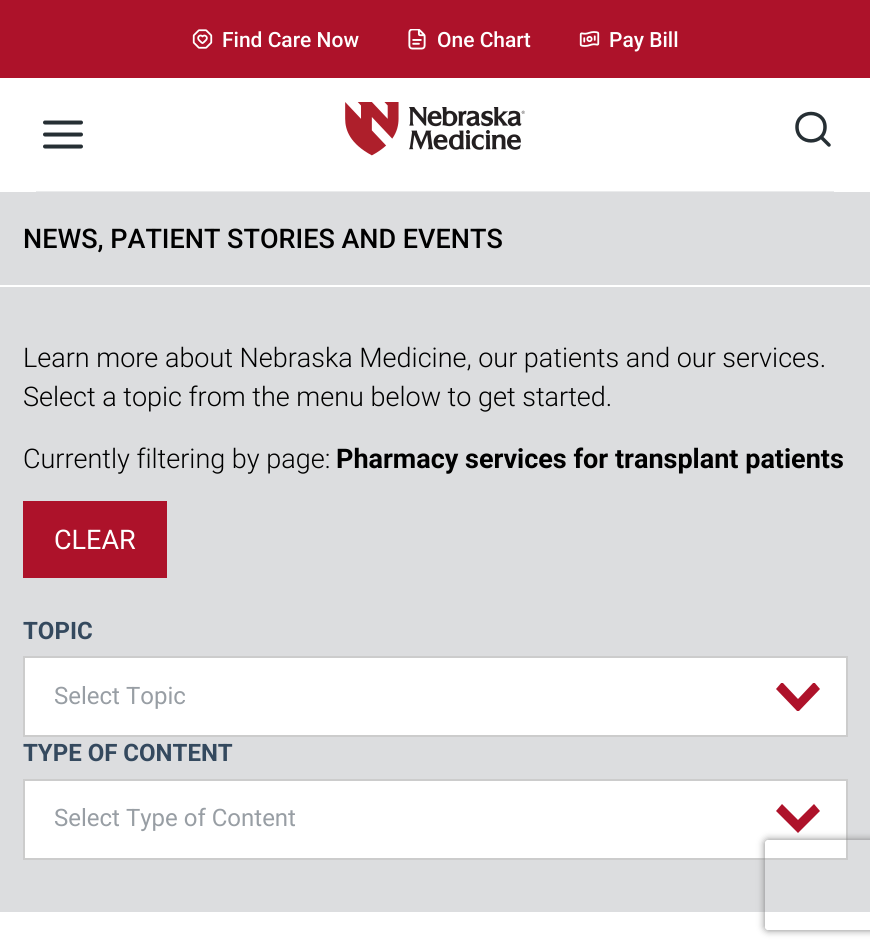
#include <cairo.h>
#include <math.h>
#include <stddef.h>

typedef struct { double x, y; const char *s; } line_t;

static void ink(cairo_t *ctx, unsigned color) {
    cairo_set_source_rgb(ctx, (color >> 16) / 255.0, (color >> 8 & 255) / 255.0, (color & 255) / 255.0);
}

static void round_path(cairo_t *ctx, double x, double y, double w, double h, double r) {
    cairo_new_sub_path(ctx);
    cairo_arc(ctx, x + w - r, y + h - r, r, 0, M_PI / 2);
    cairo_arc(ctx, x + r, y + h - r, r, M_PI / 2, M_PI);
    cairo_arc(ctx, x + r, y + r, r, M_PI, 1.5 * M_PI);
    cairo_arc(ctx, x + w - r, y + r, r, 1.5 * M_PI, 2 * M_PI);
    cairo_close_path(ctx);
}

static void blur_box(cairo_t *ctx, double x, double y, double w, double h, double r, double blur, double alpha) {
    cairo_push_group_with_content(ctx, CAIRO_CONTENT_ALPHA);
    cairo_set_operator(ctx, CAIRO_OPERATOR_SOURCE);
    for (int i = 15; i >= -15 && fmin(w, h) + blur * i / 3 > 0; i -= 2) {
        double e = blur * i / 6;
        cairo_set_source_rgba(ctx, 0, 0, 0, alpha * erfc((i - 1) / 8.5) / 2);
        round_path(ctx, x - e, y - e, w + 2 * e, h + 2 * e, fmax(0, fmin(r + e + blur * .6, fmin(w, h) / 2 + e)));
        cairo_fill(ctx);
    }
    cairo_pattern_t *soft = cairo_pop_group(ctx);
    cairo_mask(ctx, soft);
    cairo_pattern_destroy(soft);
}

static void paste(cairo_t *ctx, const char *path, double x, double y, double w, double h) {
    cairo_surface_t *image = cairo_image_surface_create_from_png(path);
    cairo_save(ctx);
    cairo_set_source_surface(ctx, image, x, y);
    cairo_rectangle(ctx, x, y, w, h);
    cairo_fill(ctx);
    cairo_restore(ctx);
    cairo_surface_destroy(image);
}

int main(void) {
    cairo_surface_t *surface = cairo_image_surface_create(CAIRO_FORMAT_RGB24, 870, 951);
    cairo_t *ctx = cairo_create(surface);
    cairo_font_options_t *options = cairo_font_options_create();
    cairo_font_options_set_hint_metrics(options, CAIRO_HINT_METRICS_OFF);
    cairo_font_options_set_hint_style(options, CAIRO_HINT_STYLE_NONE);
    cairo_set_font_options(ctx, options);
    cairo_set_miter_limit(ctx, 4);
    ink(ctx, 0xFFFFFF);
    cairo_paint(ctx);
    ink(ctx, 0xAD122A);
    cairo_rectangle(ctx, 0, 0, 870, 78);
    cairo_fill(ctx);
    paste(ctx, "media/1.png", 192, 29, 21, 20);
    cairo_select_font_face(ctx, "Roboto Medium", CAIRO_FONT_SLANT_NORMAL, CAIRO_FONT_WEIGHT_NORMAL);
    cairo_set_font_size(ctx, 21);
    ink(ctx, 0xFFFFFF);
    cairo_move_to(ctx, 222, 47);
    cairo_show_text(ctx, "Find Care Now");
    paste(ctx, "media/2.png", 408, 29, 18, 21);
    cairo_move_to(ctx, 437, 47);
    cairo_show_text(ctx, "One Chart");
    paste(ctx, "media/3.png", 579, 31, 21, 16);
    cairo_move_to(ctx, 609, 47);
    cairo_show_text(ctx, "Pay Bill");
    ink(ctx, 0xEAEBEC);
    cairo_rectangle(ctx, 36, 191, 798, 1);
    cairo_fill(ctx);
    paste(ctx, "media/4.png", 345, 102, 180, 54);
    cairo_new_path(ctx);
    cairo_move_to(ctx, 45, 134.5);
    cairo_line_to(ctx, 81, 134.5);
    cairo_move_to(ctx, 45, 122.5);
    cairo_line_to(ctx, 81, 122.5);
    cairo_move_to(ctx, 45, 146.5);
    cairo_line_to(ctx, 81, 146.5);
    ink(ctx, 0x262F34);
    cairo_set_line_width(ctx, 4);
    cairo_set_line_cap(ctx, CAIRO_LINE_CAP_ROUND);
    cairo_set_line_join(ctx, CAIRO_LINE_JOIN_ROUND);
    cairo_stroke(ctx);
    cairo_new_path(ctx);
    cairo_move_to(ctx, 829, 145);
    cairo_line_to(ctx, 821, 137);
    cairo_move_to(ctx, 825, 127);
    cairo_curve_to(ctx, 825, 145.5, 797, 145.5, 797, 127);
    cairo_curve_to(ctx, 797, 109, 825, 109, 825, 127);
    cairo_close_path(ctx);
    cairo_set_line_width(ctx, 3.5);
    cairo_stroke(ctx);
    ink(ctx, 0xDCDDDF);
    cairo_rectangle(ctx, 0, 192, 870, 93);
    cairo_fill(ctx);
    cairo_set_font_size(ctx, 27);
    ink(ctx, 0x000000);
    cairo_move_to(ctx, 23, 248);
    cairo_show_text(ctx, "NEWS, PATIENT STORIES AND EVENTS");
    ink(ctx, 0xDCDDDF);
    cairo_rectangle(ctx, 0, 287, 870, 625);
    cairo_fill(ctx);
    cairo_select_font_face(ctx, "Roboto Light", CAIRO_FONT_SLANT_NORMAL, CAIRO_FONT_WEIGHT_NORMAL);
    ink(ctx, 0x000000);
    {
        static const line_t items[] = {
            {23, 367, "Learn more about Nebraska Medicine, our patients and our services."},
            {23, 406, "Select a topic from the menu below to get started."},
            {23, 468, "Currently filtering by page:"},
        };
        for (size_t i = 0; i < sizeof items / sizeof *items; i++) {
            cairo_move_to(ctx, items[i].x, items[i].y);
            cairo_show_text(ctx, items[i].s);
        }
    }
    cairo_select_font_face(ctx, "Roboto", CAIRO_FONT_SLANT_NORMAL, CAIRO_FONT_WEIGHT_BOLD);
    cairo_move_to(ctx, 336, 468);
    cairo_show_text(ctx, "Pharmacy services for transplant patients");
    ink(ctx, 0xAD122A);
    cairo_rectangle(ctx, 23, 501, 144, 77);
    cairo_fill(ctx);
    cairo_select_font_face(ctx, "Roboto", CAIRO_FONT_SLANT_NORMAL, CAIRO_FONT_WEIGHT_NORMAL);
    ink(ctx, 0xFFFFFF);
    cairo_move_to(ctx, 54, 549);
    cairo_show_text(ctx, "CLEAR");
    cairo_select_font_face(ctx, "Roboto", CAIRO_FONT_SLANT_NORMAL, CAIRO_FONT_WEIGHT_BOLD);
    cairo_set_font_size(ctx, 24);
    ink(ctx, 0x34495E);
    cairo_move_to(ctx, 23, 639);
    cairo_show_text(ctx, "TOPIC");
    ink(ctx, 0xFFFFFF);
    cairo_rectangle(ctx, 24, 657, 823, 79);
    cairo_fill_preserve(ctx);
    ink(ctx, 0xCCCCCC);
    cairo_set_line_width(ctx, 2);
    cairo_set_line_cap(ctx, CAIRO_LINE_CAP_BUTT);
    cairo_set_line_join(ctx, CAIRO_LINE_JOIN_MITER);
    cairo_stroke(ctx);
    cairo_select_font_face(ctx, "Roboto", CAIRO_FONT_SLANT_NORMAL, CAIRO_FONT_WEIGHT_NORMAL);
    ink(ctx, 0x989EA4);
    cairo_move_to(ctx, 54, 704);
    cairo_show_text(ctx, "Select Topic");
    cairo_save(ctx);
    cairo_rectangle(ctx, 776, 683, 45, 28);
    cairo_clip(ctx);
    ink(ctx, 0xAE122A);
    cairo_new_path(ctx);
    cairo_move_to(ctx, 798, 712);
    cairo_line_to(ctx, 776, 689);
    cairo_line_to(ctx, 782, 682);
    cairo_line_to(ctx, 798, 699);
    cairo_line_to(ctx, 814, 682);
    cairo_line_to(ctx, 820, 689);
    cairo_close_path(ctx);
    cairo_fill(ctx);
    cairo_restore(ctx);
    cairo_select_font_face(ctx, "Roboto", CAIRO_FONT_SLANT_NORMAL, CAIRO_FONT_WEIGHT_BOLD);
    ink(ctx, 0x34495E);
    cairo_move_to(ctx, 23, 761);
    cairo_show_text(ctx, "TYPE OF CONTENT");
    ink(ctx, 0xFFFFFF);
    cairo_rectangle(ctx, 24, 780, 823, 79);
    cairo_fill_preserve(ctx);
    ink(ctx, 0xCCCCCC);
    cairo_stroke(ctx);
    cairo_select_font_face(ctx, "Roboto", CAIRO_FONT_SLANT_NORMAL, CAIRO_FONT_WEIGHT_NORMAL);
    ink(ctx, 0x989EA4);
    cairo_move_to(ctx, 54, 826);
    cairo_show_text(ctx, "Select Type of Content");
    ink(ctx, 0xAE122A);
    cairo_new_path(ctx);
    cairo_move_to(ctx, 798, 833);
    cairo_line_to(ctx, 776, 811);
    cairo_line_to(ctx, 782, 804);
    cairo_line_to(ctx, 798, 820);
    cairo_line_to(ctx, 814, 804);
    cairo_line_to(ctx, 820, 811);
    cairo_close_path(ctx);
    cairo_fill(ctx);
    cairo_save(ctx);
    cairo_set_fill_rule(ctx, CAIRO_FILL_RULE_EVEN_ODD);
    cairo_new_path(ctx);
    cairo_move_to(ctx, 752, 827);
    cairo_line_to(ctx, 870, 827);
    cairo_line_to(ctx, 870, 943);
    cairo_line_to(ctx, 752, 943);
    cairo_close_path(ctx);
    cairo_move_to(ctx, 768, 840);
    cairo_line_to(ctx, 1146, 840);
    cairo_curve_to(ctx, 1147.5, 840, 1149, 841.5, 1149, 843);
    cairo_line_to(ctx, 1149, 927);
    cairo_curve_to(ctx, 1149, 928.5, 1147.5, 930, 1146, 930);
    cairo_line_to(ctx, 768, 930);
    cairo_curve_to(ctx, 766.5, 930, 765, 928.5, 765, 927);
    cairo_line_to(ctx, 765, 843);
    cairo_curve_to(ctx, 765, 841.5, 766.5, 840, 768, 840);
    cairo_close_path(ctx);
    cairo_clip(ctx);
    ink(ctx, 0x808080);
    blur_box(ctx, 765, 840, 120, 90, 3, 4, 1);
    cairo_restore(ctx);
    cairo_surface_write_to_png(surface, "image.png");
    cairo_font_options_destroy(options);
    cairo_destroy(ctx);
    cairo_surface_destroy(surface);
    return 0;
}
